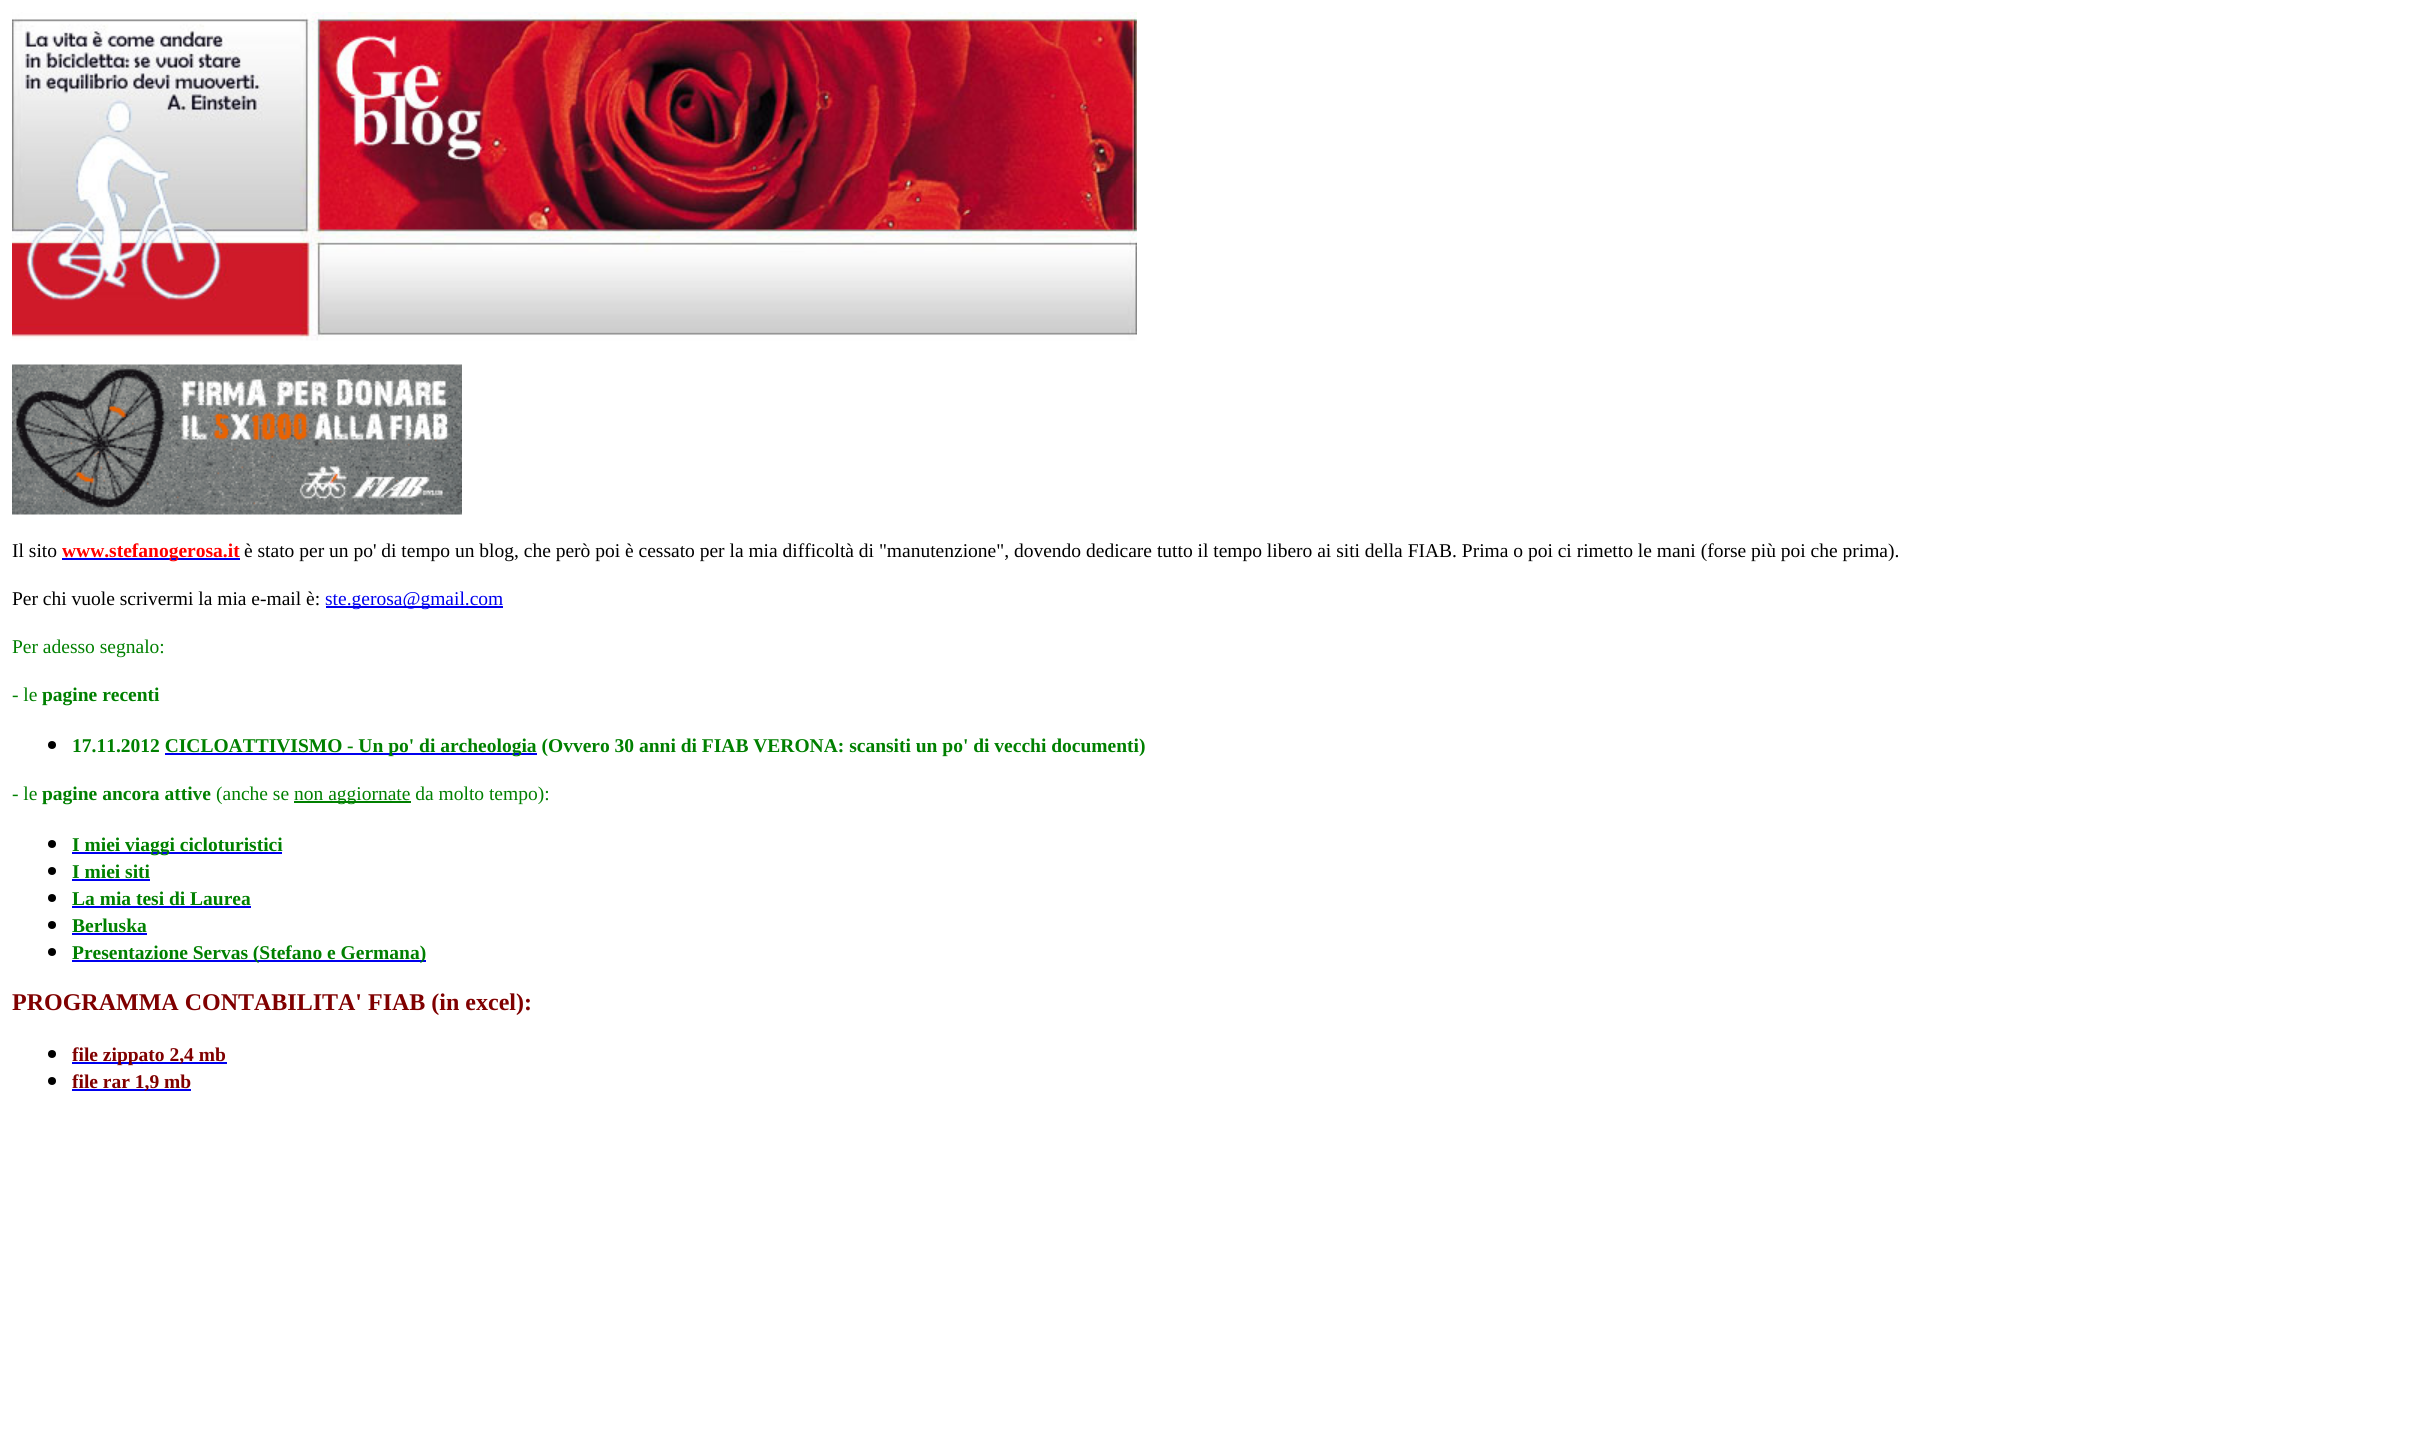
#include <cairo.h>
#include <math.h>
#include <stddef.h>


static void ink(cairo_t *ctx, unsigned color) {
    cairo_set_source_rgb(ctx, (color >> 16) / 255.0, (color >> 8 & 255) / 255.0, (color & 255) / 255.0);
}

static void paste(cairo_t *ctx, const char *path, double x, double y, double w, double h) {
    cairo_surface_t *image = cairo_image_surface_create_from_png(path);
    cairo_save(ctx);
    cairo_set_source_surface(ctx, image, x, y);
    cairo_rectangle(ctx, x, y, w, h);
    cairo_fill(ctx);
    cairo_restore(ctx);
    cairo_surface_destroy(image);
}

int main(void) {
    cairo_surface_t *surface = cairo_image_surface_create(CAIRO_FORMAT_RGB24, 2413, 1447);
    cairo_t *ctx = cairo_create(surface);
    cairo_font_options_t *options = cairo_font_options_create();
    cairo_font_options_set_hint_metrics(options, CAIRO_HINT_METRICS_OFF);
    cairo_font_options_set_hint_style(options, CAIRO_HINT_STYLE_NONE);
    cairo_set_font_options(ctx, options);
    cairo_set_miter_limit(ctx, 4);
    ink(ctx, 0xFFFFFF);
    cairo_paint(ctx);
    paste(ctx, "media/1.png", 12, 12, 1125, 329);
    paste(ctx, "media/2.png", 12, 364, 450, 151);
    cairo_select_font_face(ctx, "Liberation Serif", CAIRO_FONT_SLANT_NORMAL, CAIRO_FONT_WEIGHT_NORMAL);
    cairo_set_font_size(ctx, 19.5);
    ink(ctx, 0x000000);
    cairo_move_to(ctx, 12, 557);
    cairo_show_text(ctx, "Il sito");
    ink(ctx, 0x0000EE);
    cairo_rectangle(ctx, 62, 558, 178, 2);
    cairo_fill(ctx);
    cairo_select_font_face(ctx, "Liberation Serif", CAIRO_FONT_SLANT_NORMAL, CAIRO_FONT_WEIGHT_BOLD);
    ink(ctx, 0xFF0000);
    cairo_move_to(ctx, 62, 557);
    cairo_show_text(ctx, "www.stefanogerosa.it");
    cairo_select_font_face(ctx, "Liberation Serif", CAIRO_FONT_SLANT_NORMAL, CAIRO_FONT_WEIGHT_NORMAL);
    ink(ctx, 0x000000);
    cairo_move_to(ctx, 244, 557);
    cairo_show_text(ctx, "è stato per un po' di tempo un blog, che però poi è cessato per la mia difficoltà di \"manutenzione\", dovendo dedicare tutto il tempo libero ai siti della FIAB. Prima o poi ci rimetto le mani (forse più poi che prima).");
    cairo_move_to(ctx, 12, 605);
    cairo_show_text(ctx, "Per chi vuole scrivermi la mia e-mail è:");
    ink(ctx, 0x0000EE);
    cairo_rectangle(ctx, 326, 606, 177, 2);
    cairo_fill(ctx);
    cairo_move_to(ctx, 325, 605);
    cairo_show_text(ctx, "ste.gerosa@gmail.com");
    ink(ctx, 0x008000);
    cairo_move_to(ctx, 12, 653);
    cairo_show_text(ctx, "Per adesso segnalo:");
    cairo_move_to(ctx, 12, 701);
    cairo_show_text(ctx, "- le");
    cairo_select_font_face(ctx, "Liberation Serif", CAIRO_FONT_SLANT_NORMAL, CAIRO_FONT_WEIGHT_BOLD);
    cairo_move_to(ctx, 42, 701);
    cairo_show_text(ctx, "pagine recenti");
    ink(ctx, 0x000000);
    cairo_new_path(ctx);
    cairo_arc(ctx, 52, 745, 4, 0, 2 * M_PI);
    cairo_fill(ctx);
    ink(ctx, 0x008000);
    cairo_move_to(ctx, 72, 752);
    cairo_show_text(ctx, "17.11.2012 CICLOATTIVISMO");
    ink(ctx, 0x0000EE);
    cairo_rectangle(ctx, 165, 753, 372, 2);
    cairo_fill(ctx);
    ink(ctx, 0x008000);
    cairo_move_to(ctx, 347, 752);
    cairo_show_text(ctx, "- Un po' di archeologia (Ovvero 30 anni di FIAB VERONA: scansiti un po' di vecchi documenti)");
    cairo_select_font_face(ctx, "Liberation Serif", CAIRO_FONT_SLANT_NORMAL, CAIRO_FONT_WEIGHT_NORMAL);
    cairo_move_to(ctx, 12, 800);
    cairo_show_text(ctx, "- le");
    cairo_select_font_face(ctx, "Liberation Serif", CAIRO_FONT_SLANT_NORMAL, CAIRO_FONT_WEIGHT_BOLD);
    cairo_move_to(ctx, 42, 800);
    cairo_show_text(ctx, "pagine ancora attive");
    cairo_select_font_face(ctx, "Liberation Serif", CAIRO_FONT_SLANT_NORMAL, CAIRO_FONT_WEIGHT_NORMAL);
    cairo_move_to(ctx, 216, 800);
    cairo_show_text(ctx, "(anche se");
    cairo_rectangle(ctx, 294, 801, 117, 2);
    cairo_fill(ctx);
    cairo_move_to(ctx, 294, 800);
    cairo_show_text(ctx, "non aggiornate da molto tempo):");
    ink(ctx, 0x000000);
    cairo_new_path(ctx);
    cairo_arc(ctx, 52, 844, 4, 0, 2 * M_PI);
    cairo_fill(ctx);
    ink(ctx, 0x0000EE);
    cairo_rectangle(ctx, 72, 852, 210, 2);
    cairo_fill(ctx);
    cairo_select_font_face(ctx, "Liberation Serif", CAIRO_FONT_SLANT_NORMAL, CAIRO_FONT_WEIGHT_BOLD);
    ink(ctx, 0x008000);
    cairo_move_to(ctx, 72, 851);
    cairo_show_text(ctx, "I miei viaggi cicloturistici");
    ink(ctx, 0x000000);
    cairo_new_path(ctx);
    cairo_arc(ctx, 52, 871, 4, 0, 2 * M_PI);
    cairo_fill(ctx);
    ink(ctx, 0x008000);
    cairo_move_to(ctx, 72, 878);
    cairo_show_text(ctx, "I miei siti");
    ink(ctx, 0x0000EE);
    cairo_rectangle(ctx, 72, 879, 78, 2);
    cairo_fill(ctx);
    ink(ctx, 0x000000);
    cairo_arc(ctx, 52, 898, 4, 0, 2 * M_PI);
    cairo_fill(ctx);
    ink(ctx, 0x008000);
    cairo_move_to(ctx, 72, 905);
    cairo_show_text(ctx, "La mia tesi di Laurea");
    ink(ctx, 0x0000EE);
    cairo_rectangle(ctx, 72, 906, 179, 2);
    cairo_fill(ctx);
    ink(ctx, 0x000000);
    cairo_arc(ctx, 52, 925, 4, 0, 2 * M_PI);
    cairo_fill(ctx);
    ink(ctx, 0x008000);
    cairo_move_to(ctx, 72, 932);
    cairo_show_text(ctx, "Berluska");
    ink(ctx, 0x0000EE);
    cairo_rectangle(ctx, 72, 933, 75, 2);
    cairo_fill(ctx);
    ink(ctx, 0x000000);
    cairo_arc(ctx, 52, 952, 4, 0, 2 * M_PI);
    cairo_fill(ctx);
    ink(ctx, 0x0000EE);
    cairo_rectangle(ctx, 72, 960, 354, 2);
    cairo_fill(ctx);
    ink(ctx, 0x008000);
    cairo_move_to(ctx, 72, 959);
    cairo_show_text(ctx, "Presentazione Servas (Stefano e Germana)");
    cairo_set_font_size(ctx, 24);
    ink(ctx, 0x800000);
    cairo_move_to(ctx, 12, 1010);
    cairo_show_text(ctx, "PROGRAMMA CONTABILITA' FIAB (in excel):");
    ink(ctx, 0x000000);
    cairo_new_path(ctx);
    cairo_arc(ctx, 52, 1054, 4, 0, 2 * M_PI);
    cairo_fill(ctx);
    ink(ctx, 0x0000EE);
    cairo_rectangle(ctx, 72, 1062, 155, 2);
    cairo_fill(ctx);
    cairo_set_font_size(ctx, 19.5);
    ink(ctx, 0x800000);
    cairo_move_to(ctx, 72, 1061);
    cairo_show_text(ctx, "file zippato 2,4 mb");
    ink(ctx, 0x000000);
    cairo_new_path(ctx);
    cairo_arc(ctx, 52, 1081, 4, 0, 2 * M_PI);
    cairo_fill(ctx);
    ink(ctx, 0x0000EE);
    cairo_rectangle(ctx, 72, 1089, 119, 2);
    cairo_fill(ctx);
    ink(ctx, 0x800000);
    cairo_move_to(ctx, 72, 1088);
    cairo_show_text(ctx, "file rar 1,9 mb");
    cairo_surface_write_to_png(surface, "image.png");
    cairo_font_options_destroy(options);
    cairo_destroy(ctx);
    cairo_surface_destroy(surface);
    return 0;
}
